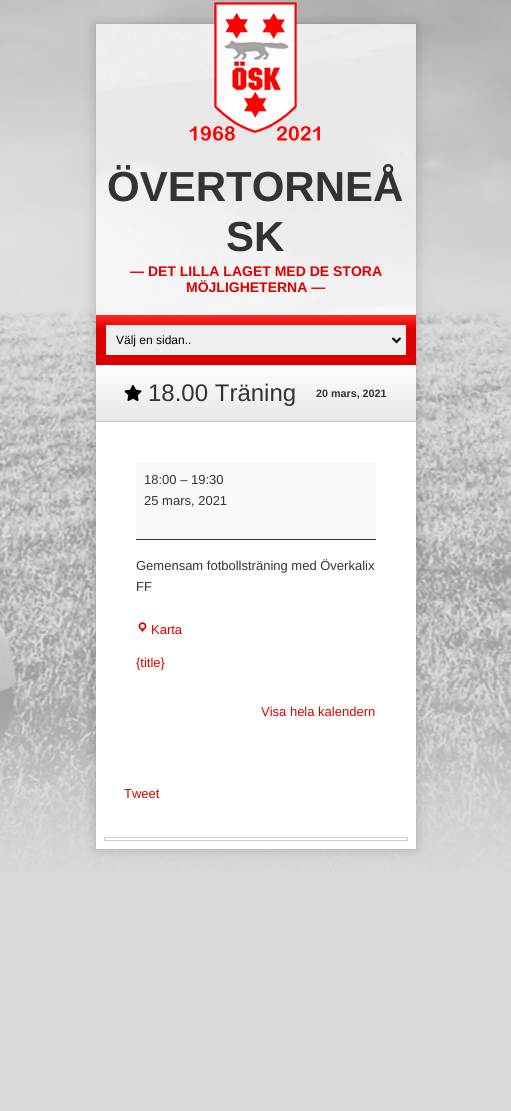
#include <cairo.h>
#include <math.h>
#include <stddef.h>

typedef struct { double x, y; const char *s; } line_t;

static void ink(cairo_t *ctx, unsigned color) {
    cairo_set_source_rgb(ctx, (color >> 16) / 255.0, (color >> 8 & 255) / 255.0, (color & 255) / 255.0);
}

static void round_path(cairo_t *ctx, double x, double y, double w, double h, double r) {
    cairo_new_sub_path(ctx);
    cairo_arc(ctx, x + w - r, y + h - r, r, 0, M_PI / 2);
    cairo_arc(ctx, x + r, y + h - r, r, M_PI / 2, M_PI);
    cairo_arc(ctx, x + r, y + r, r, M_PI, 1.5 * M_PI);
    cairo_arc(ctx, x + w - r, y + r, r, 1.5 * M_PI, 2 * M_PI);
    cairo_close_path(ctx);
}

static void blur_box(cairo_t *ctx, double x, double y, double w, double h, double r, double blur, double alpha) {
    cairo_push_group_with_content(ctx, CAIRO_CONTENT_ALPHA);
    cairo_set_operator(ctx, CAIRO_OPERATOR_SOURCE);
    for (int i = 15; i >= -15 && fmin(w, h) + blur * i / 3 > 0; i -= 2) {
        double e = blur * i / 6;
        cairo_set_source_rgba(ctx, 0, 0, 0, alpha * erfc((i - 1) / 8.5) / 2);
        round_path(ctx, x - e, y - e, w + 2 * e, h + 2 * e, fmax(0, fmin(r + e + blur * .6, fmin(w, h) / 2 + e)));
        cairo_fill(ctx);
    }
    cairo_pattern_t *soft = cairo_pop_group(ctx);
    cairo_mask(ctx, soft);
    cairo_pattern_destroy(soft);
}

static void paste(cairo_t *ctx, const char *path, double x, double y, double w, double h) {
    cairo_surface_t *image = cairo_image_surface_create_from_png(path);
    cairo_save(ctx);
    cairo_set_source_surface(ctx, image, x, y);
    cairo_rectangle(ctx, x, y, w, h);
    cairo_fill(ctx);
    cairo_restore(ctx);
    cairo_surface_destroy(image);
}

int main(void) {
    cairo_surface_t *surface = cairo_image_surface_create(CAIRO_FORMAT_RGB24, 511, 1111);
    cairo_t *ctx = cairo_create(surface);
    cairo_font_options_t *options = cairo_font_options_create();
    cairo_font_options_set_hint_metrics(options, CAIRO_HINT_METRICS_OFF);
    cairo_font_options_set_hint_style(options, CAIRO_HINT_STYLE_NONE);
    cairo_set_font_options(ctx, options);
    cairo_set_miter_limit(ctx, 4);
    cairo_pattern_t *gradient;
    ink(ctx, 0xDADADA);
    cairo_paint(ctx);
    paste(ctx, "media/1.png", 0, 0, 511, 872);
    ink(ctx, 0x000000);
    blur_box(ctx, 96, 24, 320, 825, 0, 6, 0.2);
    ink(ctx, 0xFFFFFF);
    cairo_rectangle(ctx, 96, 422, 320, 427);
    cairo_fill(ctx);
    ink(ctx, 0xF0F0F0);
    cairo_rectangle(ctx, 96, 314, 320, 1);
    cairo_fill(ctx);
    paste(ctx, "media/2.png", 96, 24, 320, 290);
    paste(ctx, "media/3.png", 189, 2, 131, 139);
    cairo_select_font_face(ctx, "Liberation Sans", CAIRO_FONT_SLANT_NORMAL, CAIRO_FONT_WEIGHT_BOLD);
    cairo_set_font_size(ctx, 42);
    ink(ctx, 0x333333);
    cairo_move_to(ctx, 107, 201);
    cairo_show_text(ctx, "ÖVERTORNEÅ");
    cairo_move_to(ctx, 226, 251);
    cairo_show_text(ctx, "SK");
    cairo_set_font_size(ctx, 14);
    ink(ctx, 0xDD0000);
    cairo_move_to(ctx, 130, 276);
    cairo_show_text(ctx, "— DET LILLA LAGET MED DE STORA");
    cairo_move_to(ctx, 186, 292);
    cairo_show_text(ctx, "MÖJLIGHETERNA —");
    gradient = cairo_pattern_create_linear(96, 315, 96, 365);
    cairo_pattern_add_color_stop_rgba(gradient, 0, 1, 0.157, 0.157, 1);
    cairo_pattern_add_color_stop_rgba(gradient, 0.3, 0.867, 0, 0, 1);
    cairo_set_source(ctx, gradient);
    cairo_pattern_destroy(gradient);
    cairo_rectangle(ctx, 96, 315, 320, 50);
    cairo_fill(ctx);
    ink(ctx, 0xEFEFEF);
    cairo_rectangle(ctx, 106, 325, 300, 30);
    cairo_fill(ctx);
    cairo_new_path(ctx);
    cairo_move_to(ctx, 392.5, 338);
    cairo_line_to(ctx, 396.5, 342);
    cairo_line_to(ctx, 400.5, 338);
    ink(ctx, 0x000000);
    cairo_stroke(ctx);
    cairo_select_font_face(ctx, "Liberation Sans", CAIRO_FONT_SLANT_NORMAL, CAIRO_FONT_WEIGHT_NORMAL);
    cairo_set_font_size(ctx, 12);
    cairo_move_to(ctx, 116, 344);
    cairo_show_text(ctx, "Välj en sidan..");
    gradient = cairo_pattern_create_linear(96, 365, 96, 421);
    cairo_pattern_add_color_stop_rgba(gradient, 0, 1, 1, 1, 1);
    cairo_pattern_add_color_stop_rgba(gradient, 1, 0.902, 0.902, 0.902, 1);
    cairo_set_source(ctx, gradient);
    cairo_pattern_destroy(gradient);
    cairo_rectangle(ctx, 96, 365, 320, 56);
    cairo_fill(ctx);
    ink(ctx, 0xCCCCCC);
    cairo_rectangle(ctx, 96, 421, 320, 1);
    cairo_fill(ctx);
    paste(ctx, "media/4.png", 124, 385, 18, 16);
    cairo_set_font_size(ctx, 24);
    ink(ctx, 0x333333);
    cairo_move_to(ctx, 148, 401);
    cairo_show_text(ctx, "18.00 Träning");
    cairo_select_font_face(ctx, "Liberation Sans", CAIRO_FONT_SLANT_NORMAL, CAIRO_FONT_WEIGHT_BOLD);
    cairo_set_font_size(ctx, 10.75);
    cairo_move_to(ctx, 316, 397);
    cairo_show_text(ctx, "20 mars, 2021");
    ink(ctx, 0xF9F9F9);
    cairo_rectangle(ctx, 136, 462, 240, 77);
    cairo_fill(ctx);
    ink(ctx, 0x333333);
    cairo_rectangle(ctx, 136, 539, 240, 1);
    cairo_fill(ctx);
    cairo_select_font_face(ctx, "Liberation Sans", CAIRO_FONT_SLANT_NORMAL, CAIRO_FONT_WEIGHT_NORMAL);
    cairo_set_font_size(ctx, 13);
    {
        static const line_t items[] = {
            {144, 484, "18:00 – 19:30"},
            {144, 505, "25 mars, 2021"},
            {136, 570, "Gemensam fotbollsträning med Överkalix"},
            {136, 591, "FF"},
        };
        for (size_t i = 0; i < sizeof items / sizeof *items; i++) {
            cairo_move_to(ctx, items[i].x, items[i].y);
            cairo_show_text(ctx, items[i].s);
        }
    }
    paste(ctx, "media/5.png", 138, 622, 9, 11);
    ink(ctx, 0xDD0000);
    {
        static const line_t items[] = {
            {151, 634, "Karta"},
            {136, 667, "{title}"},
            {261, 716, "Visa hela kalendern"},
            {124, 798, "Tweet"},
        };
        for (size_t i = 0; i < sizeof items / sizeof *items; i++) {
            cairo_move_to(ctx, items[i].x, items[i].y);
            cairo_show_text(ctx, items[i].s);
        }
    }
    cairo_rectangle(ctx, 104.5, 837.5, 303, 3);
    ink(ctx, 0xCCCCCC);
    cairo_set_line_width(ctx, 1);
    cairo_stroke(ctx);
    cairo_surface_write_to_png(surface, "image.png");
    cairo_font_options_destroy(options);
    cairo_destroy(ctx);
    cairo_surface_destroy(surface);
    return 0;
}
